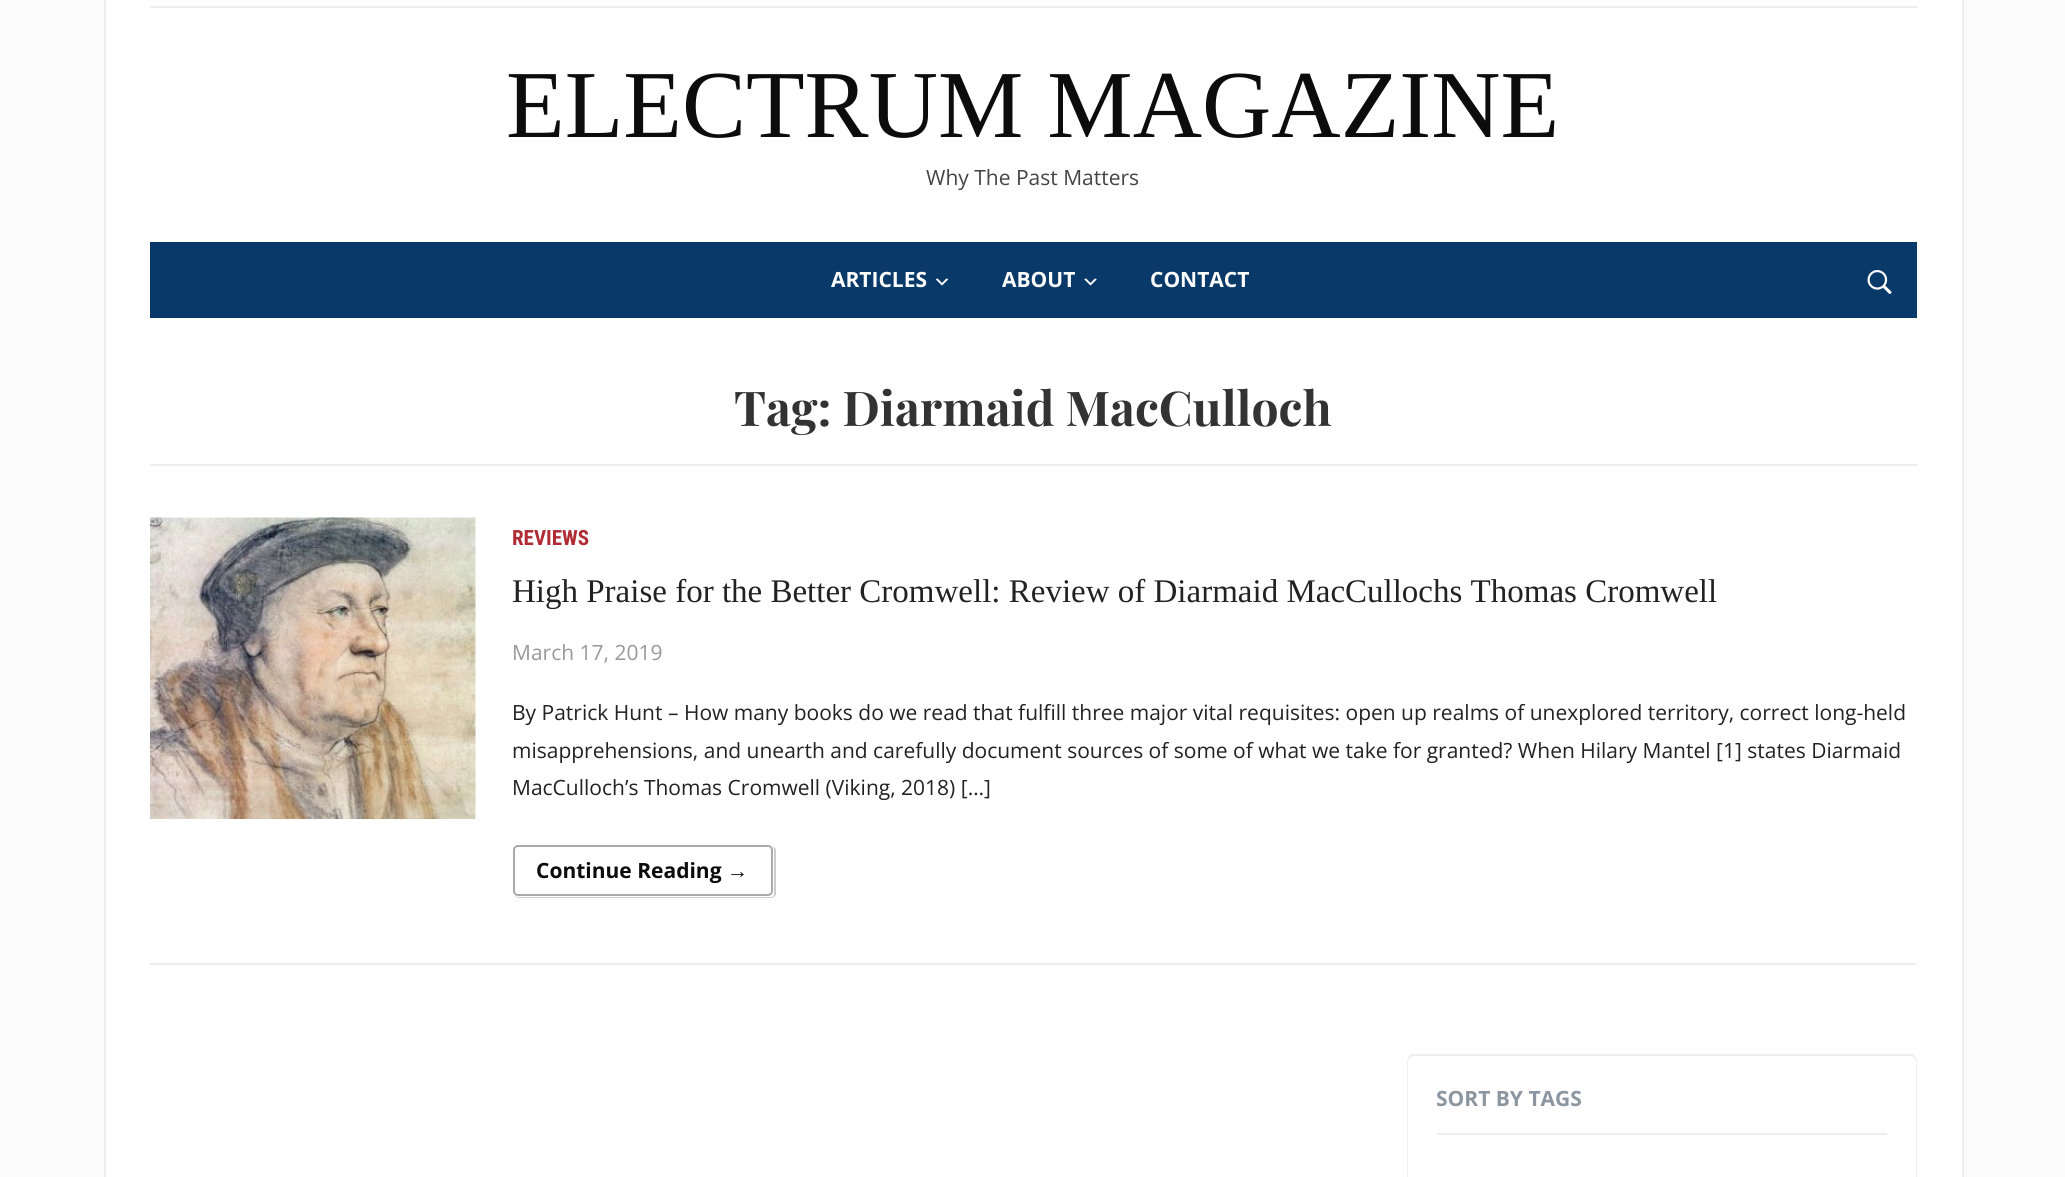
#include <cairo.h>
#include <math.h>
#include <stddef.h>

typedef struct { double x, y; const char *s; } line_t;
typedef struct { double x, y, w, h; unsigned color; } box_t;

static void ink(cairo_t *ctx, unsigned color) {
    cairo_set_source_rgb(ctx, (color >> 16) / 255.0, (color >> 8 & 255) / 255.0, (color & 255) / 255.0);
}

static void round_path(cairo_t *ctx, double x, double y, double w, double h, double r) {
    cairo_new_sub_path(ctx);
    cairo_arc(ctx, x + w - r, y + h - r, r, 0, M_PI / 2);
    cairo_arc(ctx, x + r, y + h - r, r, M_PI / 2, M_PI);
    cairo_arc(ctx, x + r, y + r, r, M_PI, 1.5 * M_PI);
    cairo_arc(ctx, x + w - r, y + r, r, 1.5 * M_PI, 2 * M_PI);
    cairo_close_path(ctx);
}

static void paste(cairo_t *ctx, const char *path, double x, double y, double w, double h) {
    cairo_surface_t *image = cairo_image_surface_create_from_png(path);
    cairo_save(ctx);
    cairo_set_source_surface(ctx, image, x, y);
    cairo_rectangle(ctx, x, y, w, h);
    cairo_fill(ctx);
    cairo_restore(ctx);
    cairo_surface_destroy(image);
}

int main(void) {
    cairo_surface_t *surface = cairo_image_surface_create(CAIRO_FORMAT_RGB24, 2065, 1177);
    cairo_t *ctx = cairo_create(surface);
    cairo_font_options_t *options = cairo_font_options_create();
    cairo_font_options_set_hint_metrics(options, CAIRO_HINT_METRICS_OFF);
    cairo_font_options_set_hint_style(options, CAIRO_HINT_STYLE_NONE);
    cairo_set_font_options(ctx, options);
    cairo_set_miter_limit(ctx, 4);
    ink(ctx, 0xFBFBFB);
    cairo_paint(ctx);
    {
        static const box_t items[] = {
            {106, 0, 1856, 1177, 0xFFFFFF},
            {1962, 0, 2, 1177, 0xEEEEEE},
            {104, 0, 2, 1177, 0xEEEEEE},
            {150, 6, 1767, 2, 0xEEEEEE},
        };
        for (size_t i = 0; i < sizeof items / sizeof *items; i++) {
            ink(ctx, items[i].color);
            cairo_rectangle(ctx, items[i].x, items[i].y, items[i].w, items[i].h);
            cairo_fill(ctx);
        }
    }
    cairo_select_font_face(ctx, "Liberation Serif", CAIRO_FONT_SLANT_NORMAL, CAIRO_FONT_WEIGHT_NORMAL);
    cairo_set_font_size(ctx, 96);
    ink(ctx, 0x0C0C0C);
    cairo_move_to(ctx, 506, 137);
    cairo_show_text(ctx, "ELECTRUM MAGAZINE");
    cairo_select_font_face(ctx, "Open Sans", CAIRO_FONT_SLANT_NORMAL, CAIRO_FONT_WEIGHT_NORMAL);
    cairo_set_font_size(ctx, 21);
    ink(ctx, 0x444444);
    cairo_move_to(ctx, 926, 185);
    cairo_show_text(ctx, "Why The Past Matters");
    ink(ctx, 0x093969);
    cairo_rectangle(ctx, 150, 242, 1767, 76);
    cairo_fill(ctx);
    cairo_select_font_face(ctx, "Open Sans", CAIRO_FONT_SLANT_NORMAL, CAIRO_FONT_WEIGHT_BOLD);
    ink(ctx, 0xFFFFFF);
    cairo_move_to(ctx, 831, 287);
    cairo_show_text(ctx, "ARTICLES");
    paste(ctx, "media/1.png", 935, 278, 14, 8);
    cairo_move_to(ctx, 1002, 287);
    cairo_show_text(ctx, "ABOUT");
    paste(ctx, "media/2.png", 1084, 278, 13, 8);
    cairo_move_to(ctx, 1150, 287);
    cairo_show_text(ctx, "CONTACT");
    paste(ctx, "media/3.png", 1867, 270, 25, 24);
    ink(ctx, 0xEEEEEE);
    cairo_rectangle(ctx, 150, 464, 1767, 2);
    cairo_fill(ctx);
    cairo_select_font_face(ctx, "Playfair Display", CAIRO_FONT_SLANT_NORMAL, CAIRO_FONT_WEIGHT_BOLD);
    cairo_set_font_size(ctx, 48);
    ink(ctx, 0x333333);
    cairo_move_to(ctx, 734, 426);
    cairo_show_text(ctx, "Tag: Diarmaid MacCulloch");
    ink(ctx, 0xEEEEEE);
    cairo_rectangle(ctx, 150, 963, 1767, 2);
    cairo_fill(ctx);
    paste(ctx, "media/4.png", 150, 517, 326, 302);
    cairo_select_font_face(ctx, "Roboto Condensed", CAIRO_FONT_SLANT_NORMAL, CAIRO_FONT_WEIGHT_BOLD);
    cairo_set_font_size(ctx, 21);
    ink(ctx, 0xB02B33);
    cairo_move_to(ctx, 512, 545);
    cairo_show_text(ctx, "REVIEWS");
    cairo_select_font_face(ctx, "Liberation Serif", CAIRO_FONT_SLANT_NORMAL, CAIRO_FONT_WEIGHT_NORMAL);
    cairo_set_font_size(ctx, 33);
    ink(ctx, 0x222222);
    cairo_move_to(ctx, 512, 602);
    cairo_show_text(ctx, "High Praise for the Better Cromwell: Review of Diarmaid MacCullochs Thomas Cromwell");
    cairo_select_font_face(ctx, "Open Sans", CAIRO_FONT_SLANT_NORMAL, CAIRO_FONT_WEIGHT_NORMAL);
    cairo_set_font_size(ctx, 21);
    ink(ctx, 0x999999);
    cairo_move_to(ctx, 512, 660);
    cairo_show_text(ctx, "March 17, 2019");
    ink(ctx, 0x222222);
    {
        static const line_t items[] = {
            {512, 720, "By Patrick Hunt – How many books do we read that fulfill three major vital requisites: open up realms of unexplored territory, correct long-held"},
            {512, 758, "misapprehensions, and unearth and carefully document sources of some of what we take for granted? When Hilary Mantel [1] states Diarmaid"},
            {512, 795, "MacCulloch’s Thomas Cromwell (Viking, 2018) […]"},
        };
        for (size_t i = 0; i < sizeof items / sizeof *items; i++) {
            cairo_move_to(ctx, items[i].x, items[i].y);
            cairo_show_text(ctx, items[i].s);
        }
    }
    round_path(ctx, 514, 846, 258, 49, 4);
    ink(ctx, 0xAAAAAA);
    cairo_stroke(ctx);
    cairo_select_font_face(ctx, "Open Sans", CAIRO_FONT_SLANT_NORMAL, CAIRO_FONT_WEIGHT_BOLD);
    ink(ctx, 0x0C0C0C);
    cairo_move_to(ctx, 536, 878);
    cairo_show_text(ctx, "Continue Reading");
    cairo_select_font_face(ctx, "Liberation Sans", CAIRO_FONT_SLANT_NORMAL, CAIRO_FONT_WEIGHT_BOLD);
    cairo_move_to(ctx, 727, 878);
    cairo_show_text(ctx, "→");
    ink(ctx, 0xCCCCCC);
    cairo_set_fill_rule(ctx, CAIRO_FILL_RULE_EVEN_ODD);
    cairo_new_path(ctx);
    cairo_move_to(ctx, 519, 846);
    cairo_line_to(ctx, 771, 846);
    cairo_curve_to(ctx, 773, 846, 776, 848, 776, 850);
    cairo_line_to(ctx, 776, 894);
    cairo_curve_to(ctx, 776, 896, 773, 898, 771, 898);
    cairo_line_to(ctx, 519, 898);
    cairo_curve_to(ctx, 517, 898, 514, 896, 514, 894);
    cairo_line_to(ctx, 514, 850);
    cairo_curve_to(ctx, 514, 848, 517, 846, 519, 846);
    cairo_close_path(ctx);
    cairo_move_to(ctx, 519, 846);
    cairo_line_to(ctx, 771, 846);
    cairo_curve_to(ctx, 773, 846, 774, 848, 774, 850);
    cairo_line_to(ctx, 774, 894);
    cairo_curve_to(ctx, 774, 896, 773, 897, 771, 897);
    cairo_line_to(ctx, 519, 897);
    cairo_curve_to(ctx, 517, 897, 514, 896, 514, 894);
    cairo_line_to(ctx, 514, 850);
    cairo_curve_to(ctx, 514, 848, 517, 846, 519, 846);
    cairo_close_path(ctx);
    cairo_fill(ctx);
    ink(ctx, 0xEEEEEE);
    cairo_set_fill_rule(ctx, CAIRO_FILL_RULE_WINDING);
    cairo_new_path(ctx);
    cairo_move_to(ctx, 1414, 1056);
    cairo_curve_to(ctx, 1413, 1056, 1411, 1057, 1410, 1058);
    cairo_line_to(ctx, 1409, 1056);
    cairo_line_to(ctx, 1412, 1054);
    cairo_line_to(ctx, 1912, 1054);
    cairo_line_to(ctx, 1915, 1056);
    cairo_line_to(ctx, 1914, 1058);
    cairo_curve_to(ctx, 1913, 1057, 1911, 1056, 1910, 1056);
    cairo_close_path(ctx);
    cairo_fill(ctx);
    cairo_new_path(ctx);
    cairo_move_to(ctx, 1917, 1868);
    cairo_line_to(ctx, 1917, 1062);
    cairo_curve_to(ctx, 1917, 1060, 1916, 1058, 1915, 1056);
    cairo_line_to(ctx, 1914, 1058);
    cairo_curve_to(ctx, 1915, 1059, 1916, 1060, 1916, 1062);
    cairo_line_to(ctx, 1916, 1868);
    cairo_line_to(ctx, 1915, 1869);
    cairo_line_to(ctx, 1916, 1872);
    cairo_close_path(ctx);
    cairo_fill(ctx);
    cairo_new_path(ctx);
    cairo_move_to(ctx, 1407, 1062);
    cairo_line_to(ctx, 1407, 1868);
    cairo_line_to(ctx, 1408, 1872);
    cairo_line_to(ctx, 1409, 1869);
    cairo_line_to(ctx, 1408, 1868);
    cairo_line_to(ctx, 1408, 1062);
    cairo_curve_to(ctx, 1408, 1060, 1409, 1059, 1410, 1058);
    cairo_line_to(ctx, 1409, 1056);
    cairo_curve_to(ctx, 1408, 1058, 1407, 1060, 1407, 1062);
    cairo_close_path(ctx);
    cairo_fill(ctx);
    cairo_rectangle(ctx, 1437, 1133, 450, 2);
    cairo_fill(ctx);
    cairo_select_font_face(ctx, "Open Sans", CAIRO_FONT_SLANT_NORMAL, CAIRO_FONT_WEIGHT_BOLD);
    ink(ctx, 0x8B96A0);
    cairo_move_to(ctx, 1436, 1106);
    cairo_show_text(ctx, "SORT BY TAGS");
    cairo_surface_write_to_png(surface, "image.png");
    cairo_font_options_destroy(options);
    cairo_destroy(ctx);
    cairo_surface_destroy(surface);
    return 0;
}
